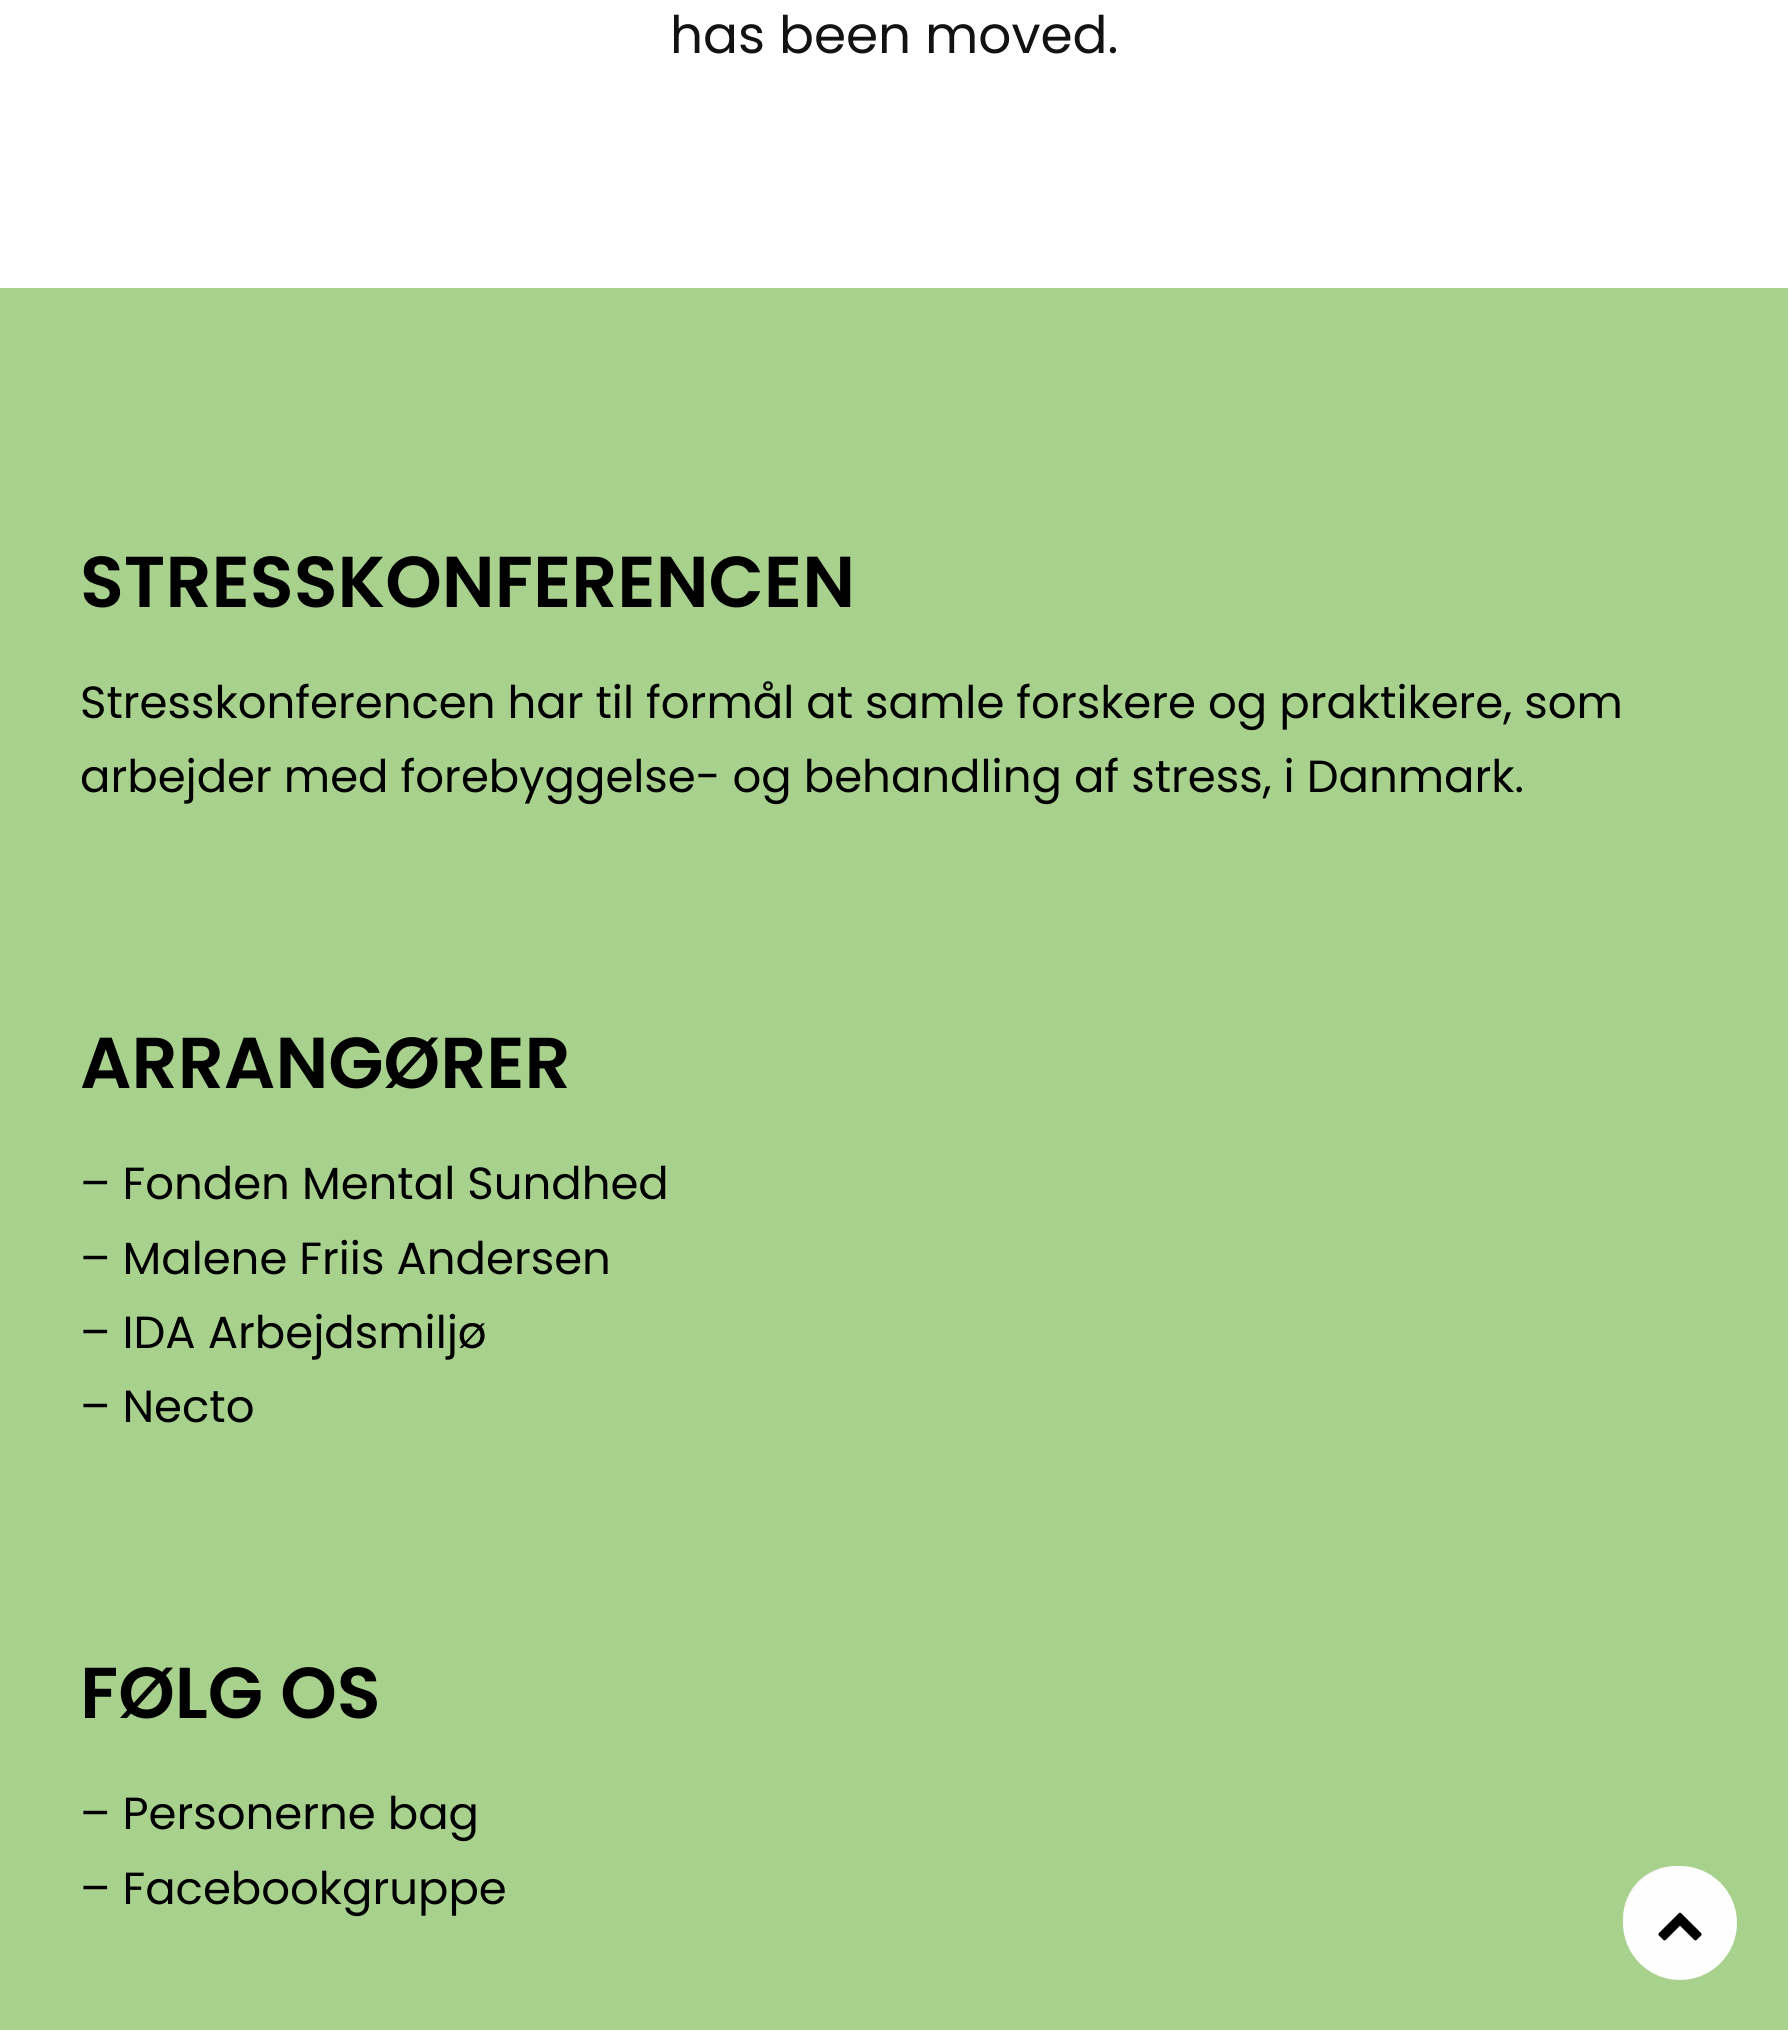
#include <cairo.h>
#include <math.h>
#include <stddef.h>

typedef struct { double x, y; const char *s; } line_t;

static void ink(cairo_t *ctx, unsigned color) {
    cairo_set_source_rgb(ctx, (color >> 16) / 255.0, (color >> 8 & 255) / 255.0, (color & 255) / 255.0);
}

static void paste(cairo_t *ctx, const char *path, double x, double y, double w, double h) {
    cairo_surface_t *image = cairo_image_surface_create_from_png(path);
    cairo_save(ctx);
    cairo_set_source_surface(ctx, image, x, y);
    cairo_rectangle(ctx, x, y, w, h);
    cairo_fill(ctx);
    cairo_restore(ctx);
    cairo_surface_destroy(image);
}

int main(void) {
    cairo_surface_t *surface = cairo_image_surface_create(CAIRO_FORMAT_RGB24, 1788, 2030);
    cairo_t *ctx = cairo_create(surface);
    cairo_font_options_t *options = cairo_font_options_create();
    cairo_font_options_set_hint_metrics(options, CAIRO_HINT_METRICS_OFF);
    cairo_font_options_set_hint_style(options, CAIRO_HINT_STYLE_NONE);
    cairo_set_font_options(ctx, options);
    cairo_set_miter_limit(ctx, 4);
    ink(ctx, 0xFFFFFF);
    cairo_paint(ctx);
    cairo_select_font_face(ctx, "Poppins", CAIRO_FONT_SLANT_NORMAL, CAIRO_FONT_WEIGHT_NORMAL);
    cairo_set_font_size(ctx, 51.75);
    ink(ctx, 0x121212);
    cairo_move_to(ctx, 670, 53);
    cairo_show_text(ctx, "has been moved.");
    ink(ctx, 0xA9D18E);
    cairo_rectangle(ctx, 0, 288, 1788, 1742);
    cairo_fill(ctx);
    cairo_select_font_face(ctx, "Poppins SemiBold", CAIRO_FONT_SLANT_NORMAL, CAIRO_FONT_WEIGHT_NORMAL);
    cairo_set_font_size(ctx, 72);
    ink(ctx, 0x000000);
    cairo_move_to(ctx, 80, 607);
    cairo_show_text(ctx, "STRESSKONFERENCEN");
    cairo_select_font_face(ctx, "Poppins", CAIRO_FONT_SLANT_NORMAL, CAIRO_FONT_WEIGHT_NORMAL);
    cairo_set_font_size(ctx, 45);
    cairo_move_to(ctx, 80, 718);
    cairo_show_text(ctx, "Stresskonferencen har til formål at samle forskere og praktikere, som");
    cairo_move_to(ctx, 80, 792);
    cairo_show_text(ctx, "arbejder med forebyggelse- og behandling af stress, i Danmark.");
    cairo_select_font_face(ctx, "Poppins SemiBold", CAIRO_FONT_SLANT_NORMAL, CAIRO_FONT_WEIGHT_NORMAL);
    cairo_set_font_size(ctx, 72);
    cairo_move_to(ctx, 80, 1088);
    cairo_show_text(ctx, "ARRANGØRER");
    cairo_select_font_face(ctx, "Poppins", CAIRO_FONT_SLANT_NORMAL, CAIRO_FONT_WEIGHT_NORMAL);
    cairo_set_font_size(ctx, 45);
    {
        static const line_t items[] = {
            {80, 1199, "– Fonden Mental Sundhed"},
            {80, 1274, "– Malene Friis Andersen"},
            {80, 1348, "– IDA Arbejdsmiljø"},
            {80, 1422, "– Necto"},
        };
        for (size_t i = 0; i < sizeof items / sizeof *items; i++) {
            cairo_move_to(ctx, items[i].x, items[i].y);
            cairo_show_text(ctx, items[i].s);
        }
    }
    cairo_select_font_face(ctx, "Poppins SemiBold", CAIRO_FONT_SLANT_NORMAL, CAIRO_FONT_WEIGHT_NORMAL);
    cairo_set_font_size(ctx, 72);
    cairo_move_to(ctx, 80, 1718);
    cairo_show_text(ctx, "FØLG OS");
    cairo_select_font_face(ctx, "Poppins", CAIRO_FONT_SLANT_NORMAL, CAIRO_FONT_WEIGHT_NORMAL);
    cairo_set_font_size(ctx, 45);
    cairo_move_to(ctx, 80, 1829);
    cairo_show_text(ctx, "– Personerne bag");
    cairo_move_to(ctx, 80, 1904);
    cairo_show_text(ctx, "– Facebookgruppe");
    ink(ctx, 0xF7F7F7);
    cairo_new_path(ctx);
    cairo_arc(ctx, 1675.5, 1918.5, 52.5, 0, 2 * M_PI);
    cairo_fill(ctx);
    ink(ctx, 0xFEFEFE);
    cairo_arc(ctx, 1680, 1923, 55.5, 0, 2 * M_PI);
    cairo_fill_preserve(ctx);
    cairo_set_line_width(ctx, 3);
    cairo_stroke(ctx);
    paste(ctx, "media/1.png", 1658, 1912, 44, 29);
    cairo_surface_write_to_png(surface, "image.png");
    cairo_font_options_destroy(options);
    cairo_destroy(ctx);
    cairo_surface_destroy(surface);
    return 0;
}
